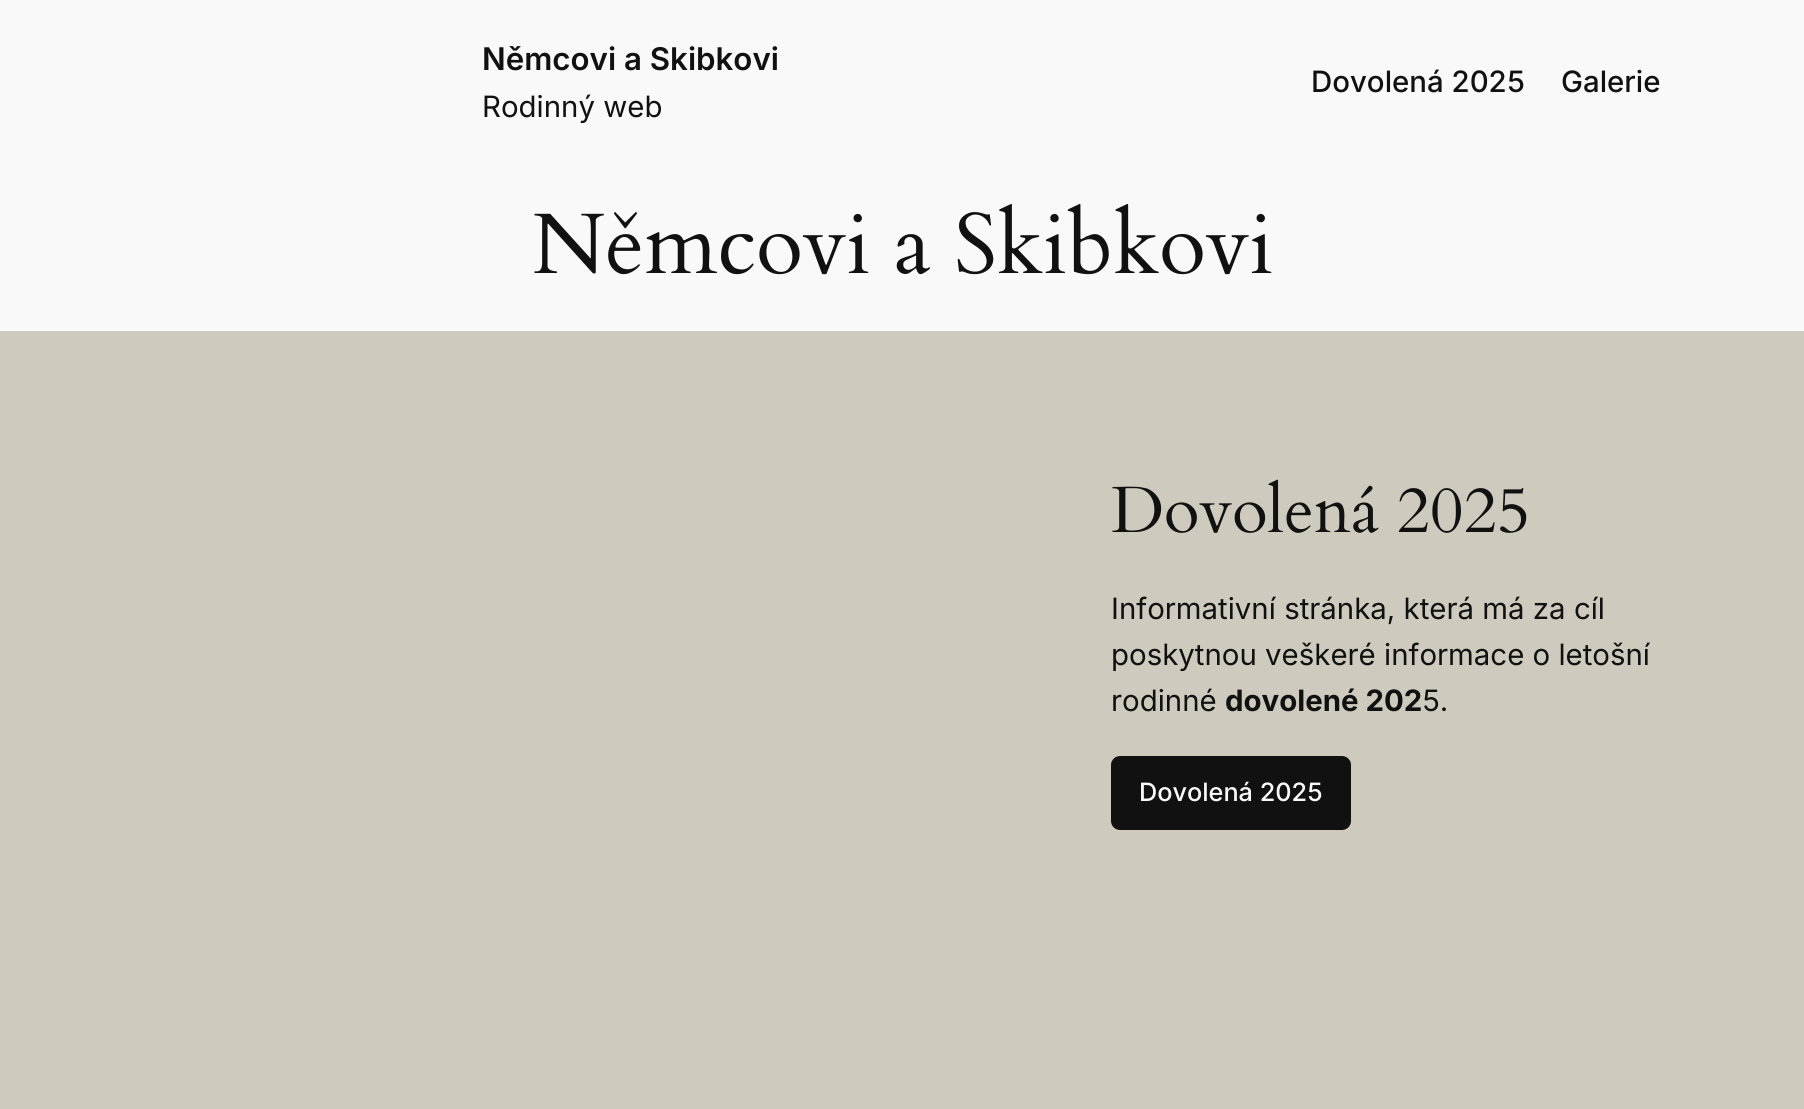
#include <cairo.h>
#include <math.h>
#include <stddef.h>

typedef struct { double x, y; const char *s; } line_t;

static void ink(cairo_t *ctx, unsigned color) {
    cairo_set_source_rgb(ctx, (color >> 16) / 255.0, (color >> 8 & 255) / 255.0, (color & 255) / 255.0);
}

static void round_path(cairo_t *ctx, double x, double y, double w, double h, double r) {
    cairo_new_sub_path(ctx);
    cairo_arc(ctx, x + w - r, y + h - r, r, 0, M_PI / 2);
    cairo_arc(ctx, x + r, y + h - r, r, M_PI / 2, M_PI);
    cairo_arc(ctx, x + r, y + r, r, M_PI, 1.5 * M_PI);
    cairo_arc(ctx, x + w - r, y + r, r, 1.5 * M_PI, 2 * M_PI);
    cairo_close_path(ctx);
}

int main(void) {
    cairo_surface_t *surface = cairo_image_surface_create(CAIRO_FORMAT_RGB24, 1804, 1109);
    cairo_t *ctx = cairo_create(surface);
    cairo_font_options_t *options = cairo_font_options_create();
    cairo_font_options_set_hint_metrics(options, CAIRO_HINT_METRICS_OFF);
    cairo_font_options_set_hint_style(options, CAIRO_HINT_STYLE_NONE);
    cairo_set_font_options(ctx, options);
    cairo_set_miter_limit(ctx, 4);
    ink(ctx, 0xF9F9F9);
    cairo_paint(ctx);
    cairo_select_font_face(ctx, "Inter SemiBold", CAIRO_FONT_SLANT_NORMAL, CAIRO_FONT_WEIGHT_NORMAL);
    cairo_set_font_size(ctx, 31.25);
    ink(ctx, 0x111111);
    cairo_move_to(ctx, 482, 70);
    cairo_show_text(ctx, "Němcovi a Skibkovi");
    cairo_select_font_face(ctx, "Inter", CAIRO_FONT_SLANT_NORMAL, CAIRO_FONT_WEIGHT_NORMAL);
    cairo_set_font_size(ctx, 29.4);
    cairo_move_to(ctx, 482, 117);
    cairo_show_text(ctx, "Rodinný web");
    cairo_select_font_face(ctx, "Inter Medium", CAIRO_FONT_SLANT_NORMAL, CAIRO_FONT_WEIGHT_NORMAL);
    cairo_move_to(ctx, 1311, 92);
    cairo_show_text(ctx, "Dovolená 2025");
    cairo_move_to(ctx, 1561, 92);
    cairo_show_text(ctx, "Galerie");
    cairo_select_font_face(ctx, "Cardo", CAIRO_FONT_SLANT_NORMAL, CAIRO_FONT_WEIGHT_NORMAL);
    cairo_set_font_size(ctx, 86);
    cairo_move_to(ctx, 532, 273);
    cairo_show_text(ctx, "Němcovi a Skibkovi");
    ink(ctx, 0xCFCABE);
    cairo_rectangle(ctx, 0, 331, 1804, 778);
    cairo_fill(ctx);
    cairo_set_font_size(ctx, 65.25);
    ink(ctx, 0x111111);
    cairo_move_to(ctx, 1111, 532);
    cairo_show_text(ctx, "Dovolená 2025");
    cairo_select_font_face(ctx, "Inter", CAIRO_FONT_SLANT_NORMAL, CAIRO_FONT_WEIGHT_NORMAL);
    cairo_set_font_size(ctx, 29.4);
    {
        static const line_t items[] = {
            {1111, 619, "Informativní stránka, která má za cíl"},
            {1111, 665, "poskytnou veškeré informace o letošní"},
            {1111, 711, "rodinné"},
        };
        for (size_t i = 0; i < sizeof items / sizeof *items; i++) {
            cairo_move_to(ctx, items[i].x, items[i].y);
            cairo_show_text(ctx, items[i].s);
        }
    }
    cairo_select_font_face(ctx, "Inter", CAIRO_FONT_SLANT_NORMAL, CAIRO_FONT_WEIGHT_BOLD);
    cairo_move_to(ctx, 1225, 711);
    cairo_show_text(ctx, "dovolené 202");
    cairo_select_font_face(ctx, "Inter", CAIRO_FONT_SLANT_NORMAL, CAIRO_FONT_WEIGHT_NORMAL);
    cairo_move_to(ctx, 1422, 711);
    cairo_show_text(ctx, "5.");
    round_path(ctx, 1111, 756, 240, 74, 9);
    cairo_fill(ctx);
    cairo_select_font_face(ctx, "Inter Medium", CAIRO_FONT_SLANT_NORMAL, CAIRO_FONT_WEIGHT_NORMAL);
    cairo_set_font_size(ctx, 25.25);
    ink(ctx, 0xF9F9F9);
    cairo_move_to(ctx, 1139, 801);
    cairo_show_text(ctx, "Dovolená 2025");
    cairo_surface_write_to_png(surface, "image.png");
    cairo_font_options_destroy(options);
    cairo_destroy(ctx);
    cairo_surface_destroy(surface);
    return 0;
}
